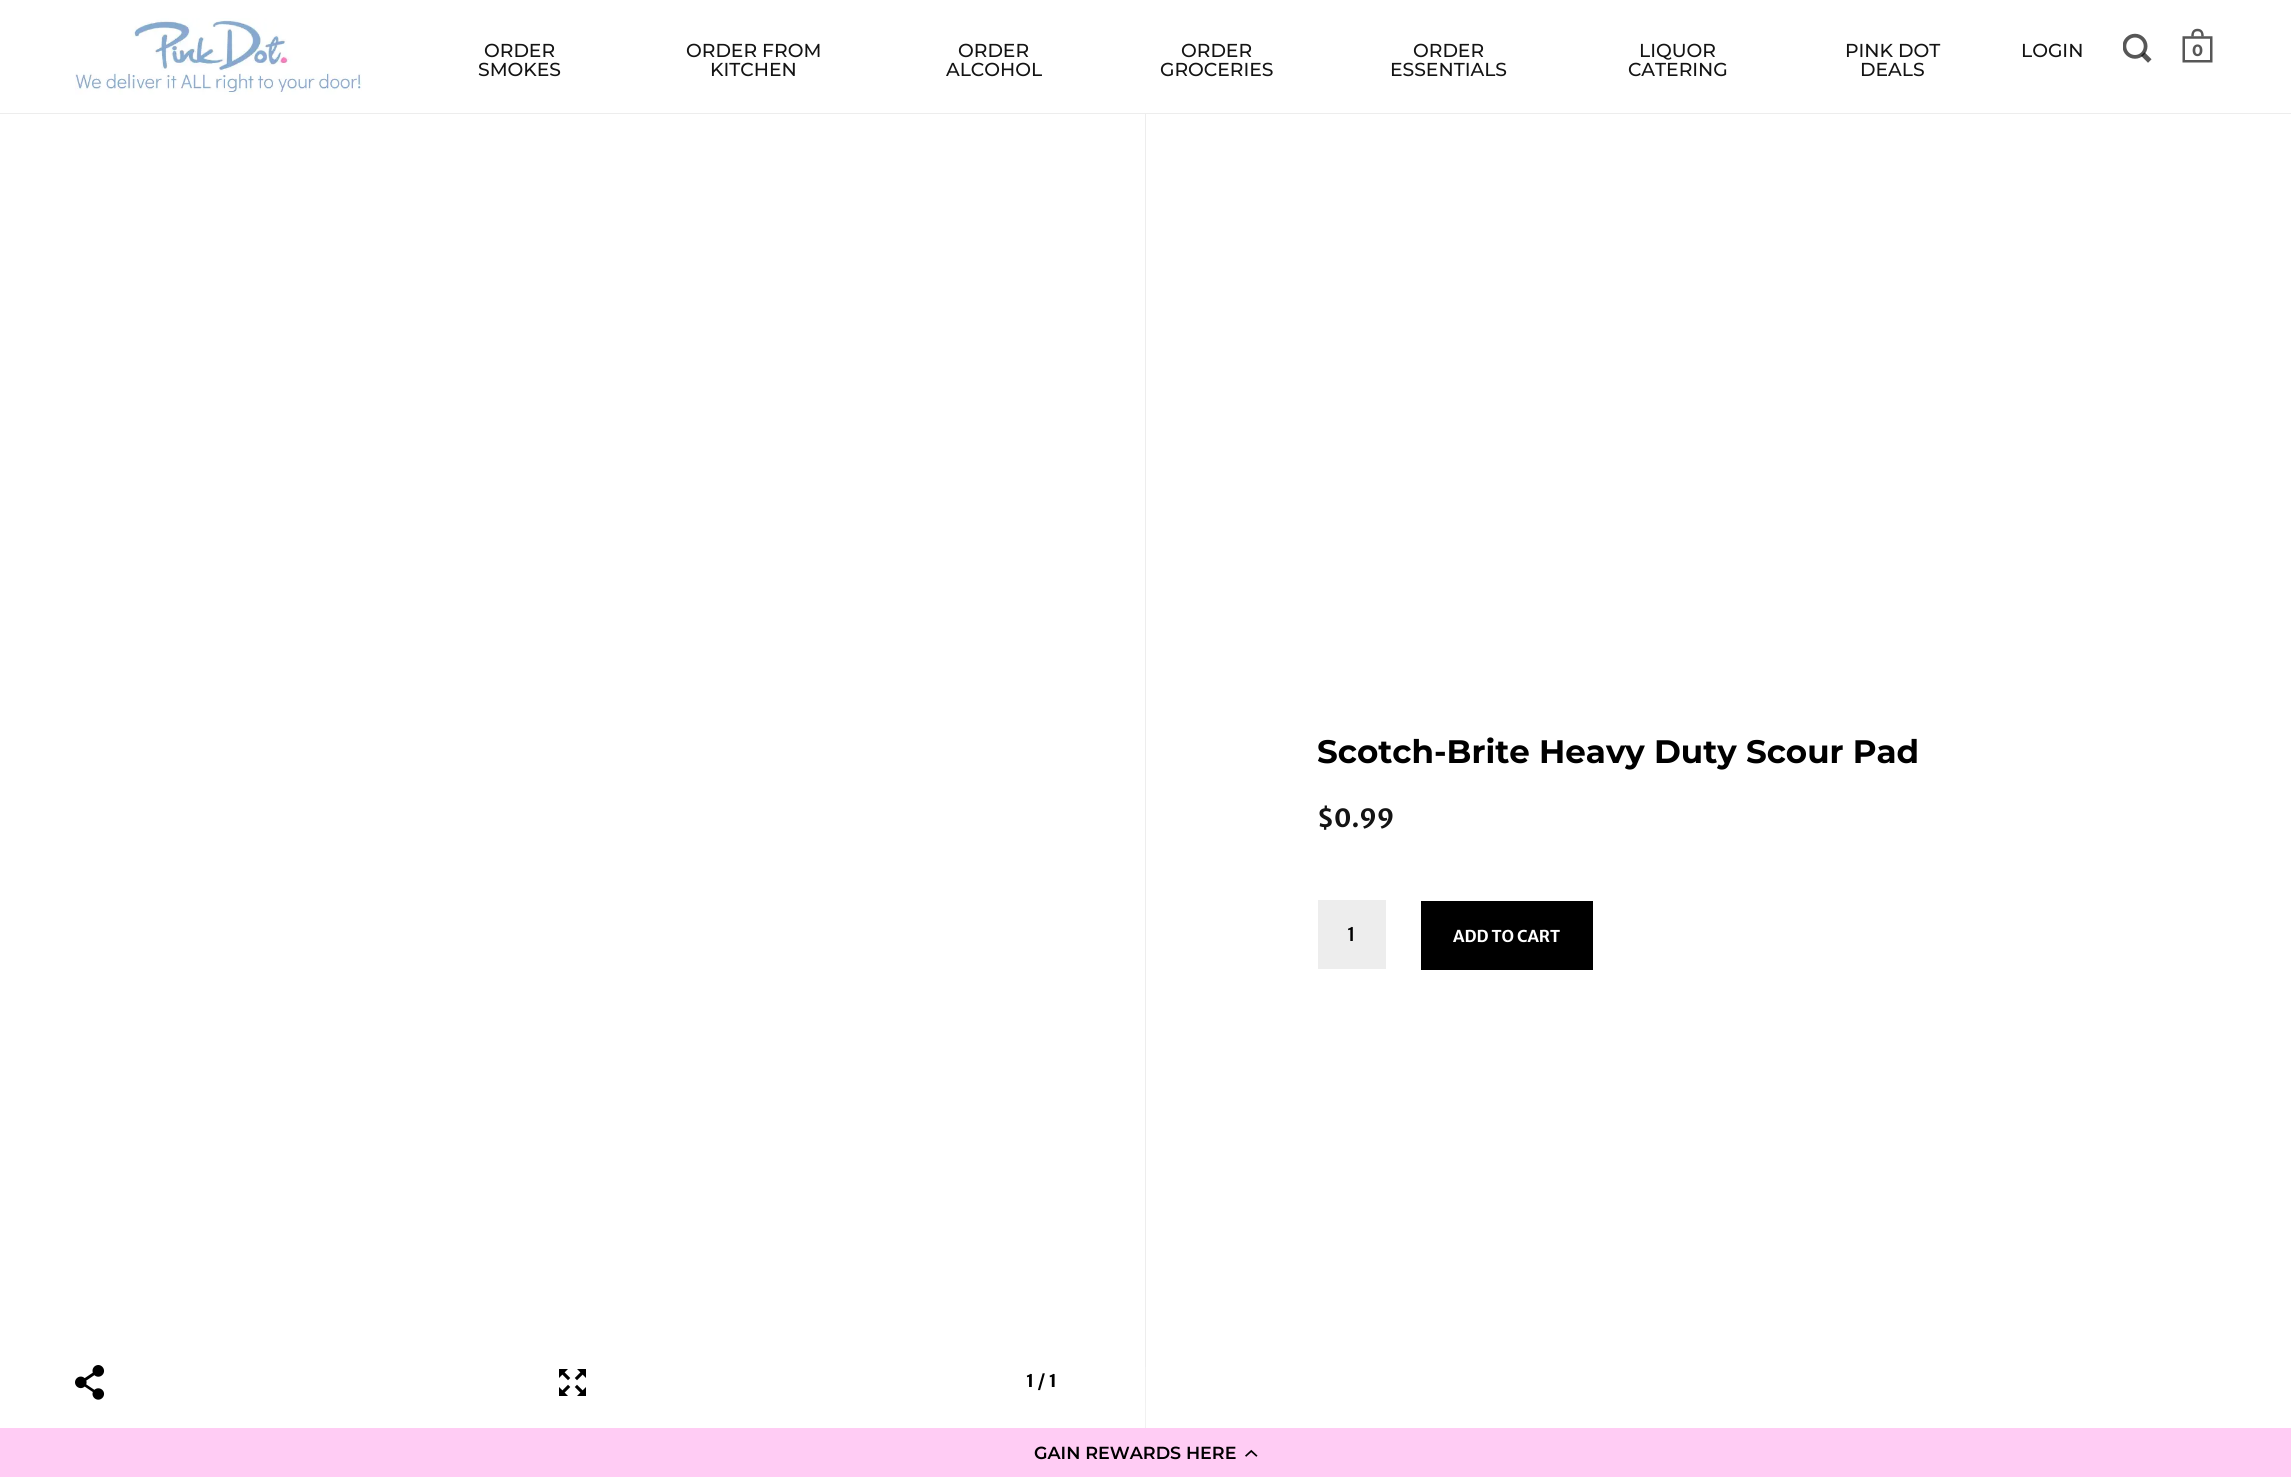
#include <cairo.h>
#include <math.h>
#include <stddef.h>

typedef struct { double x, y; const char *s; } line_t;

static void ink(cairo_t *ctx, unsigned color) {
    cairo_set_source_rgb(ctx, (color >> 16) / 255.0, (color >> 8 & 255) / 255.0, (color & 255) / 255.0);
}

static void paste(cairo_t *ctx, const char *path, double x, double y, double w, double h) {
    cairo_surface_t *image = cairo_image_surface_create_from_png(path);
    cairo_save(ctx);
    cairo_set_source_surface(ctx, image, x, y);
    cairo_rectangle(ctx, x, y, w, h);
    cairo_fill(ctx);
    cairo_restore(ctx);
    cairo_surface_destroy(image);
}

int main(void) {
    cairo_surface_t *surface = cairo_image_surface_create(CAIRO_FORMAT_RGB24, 2291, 1477);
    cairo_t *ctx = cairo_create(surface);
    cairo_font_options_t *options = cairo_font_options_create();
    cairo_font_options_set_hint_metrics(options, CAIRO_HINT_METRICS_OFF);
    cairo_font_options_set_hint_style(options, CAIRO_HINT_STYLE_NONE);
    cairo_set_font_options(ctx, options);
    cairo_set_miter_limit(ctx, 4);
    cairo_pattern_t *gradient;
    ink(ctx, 0xFFFFFF);
    cairo_paint(ctx);
    ink(ctx, 0xEDEDED);
    cairo_rectangle(ctx, 0, 113, 2291, 1);
    cairo_fill(ctx);
    paste(ctx, "media/1.png", 75, 18, 287, 77);
    cairo_select_font_face(ctx, "Montserrat Medium", CAIRO_FONT_SLANT_NORMAL, CAIRO_FONT_WEIGHT_NORMAL);
    cairo_set_font_size(ctx, 18.75);
    ink(ctx, 0x141414);
    {
        static const line_t items[] = {
            {484, 57, "ORDER"},
            {478, 76, "SMOKES"},
            {686, 57, "ORDER FROM"},
            {710, 76, "KITCHEN"},
            {958, 57, "ORDER"},
            {946, 76, "ALCOHOL"},
            {1181, 57, "ORDER"},
            {1160, 76, "GROCERIES"},
            {1413, 57, "ORDER"},
            {1390, 76, "ESSENTIALS"},
            {1639, 57, "LIQUOR"},
            {1628, 76, "CATERING"},
            {1845, 57, "PINK DOT"},
            {1860, 76, "DEALS"},
            {2021, 57, "LOGIN"},
        };
        for (size_t i = 0; i < sizeof items / sizeof *items; i++) {
            cairo_move_to(ctx, items[i].x, items[i].y);
            cairo_show_text(ctx, items[i].s);
        }
    }
    paste(ctx, "media/2.png", 2123, 33, 29, 30);
    paste(ctx, "media/3.png", 2182, 28, 31, 35);
    cairo_select_font_face(ctx, "Montserrat", CAIRO_FONT_SLANT_NORMAL, CAIRO_FONT_WEIGHT_BOLD);
    cairo_set_font_size(ctx, 16.25);
    ink(ctx, 0x575757);
    cairo_move_to(ctx, 2192, 56);
    cairo_show_text(ctx, "0");
    paste(ctx, "media/4.png", 75, 1365, 30, 35);
    ink(ctx, 0xEDEDED);
    cairo_rectangle(ctx, 1145, 114, 1, 1314);
    cairo_fill(ctx);
    cairo_set_font_size(ctx, 32.5);
    ink(ctx, 0x000000);
    cairo_move_to(ctx, 1317, 763);
    cairo_show_text(ctx, "Scotch-Brite Heavy Duty Scour Pad");
    cairo_select_font_face(ctx, "Merriweather Sans", CAIRO_FONT_SLANT_NORMAL, CAIRO_FONT_WEIGHT_BOLD);
    cairo_set_font_size(ctx, 25);
    ink(ctx, 0x141414);
    cairo_move_to(ctx, 1317, 827);
    cairo_show_text(ctx, "$0.99");
    ink(ctx, 0xEDEDED);
    cairo_rectangle(ctx, 1318, 900, 68, 69);
    cairo_fill(ctx);
    cairo_select_font_face(ctx, "Merriweather Sans Medium", CAIRO_FONT_SLANT_NORMAL, CAIRO_FONT_WEIGHT_NORMAL);
    cairo_set_font_size(ctx, 18.75);
    ink(ctx, 0x000000);
    cairo_move_to(ctx, 1347, 941);
    cairo_show_text(ctx, "1");
    cairo_rectangle(ctx, 1421, 901, 172, 69);
    cairo_fill(ctx);
    cairo_select_font_face(ctx, "Merriweather Sans", CAIRO_FONT_SLANT_NORMAL, CAIRO_FONT_WEIGHT_BOLD);
    cairo_set_font_size(ctx, 16.25);
    ink(ctx, 0xFFFFFF);
    cairo_move_to(ctx, 1453, 942);
    cairo_show_text(ctx, "ADD TO CART");
    paste(ctx, "media/5.png", 559, 1369, 27, 27);
    cairo_set_font_size(ctx, 17.5);
    ink(ctx, 0x000000);
    cairo_move_to(ctx, 1026, 1387);
    cairo_show_text(ctx, "1 / 1");
    gradient = cairo_pattern_create_linear(573, 1265, 573, 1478);
    cairo_pattern_add_color_stop_rgba(gradient, 0, 1, 1, 1, 0);
    cairo_pattern_add_color_stop_rgba(gradient, 1, 1, 1, 1, 0.3);
    cairo_set_source(ctx, gradient);
    cairo_pattern_destroy(gradient);
    cairo_rectangle(ctx, 1145, 1367, 1, 61);
    cairo_fill(ctx);
    ink(ctx, 0xFFCCF4);
    cairo_rectangle(ctx, 0, 1428, 2291, 49);
    cairo_fill(ctx);
    cairo_select_font_face(ctx, "Montserrat Thin", CAIRO_FONT_SLANT_NORMAL, CAIRO_FONT_WEIGHT_NORMAL);
    ink(ctx, 0x000000);
    cairo_move_to(ctx, 1034, 1459);
    cairo_show_text(ctx, "GAIN REWARDS HERE");
    paste(ctx, "media/6.png", 1245, 1449, 13, 8);
    cairo_surface_write_to_png(surface, "image.png");
    cairo_font_options_destroy(options);
    cairo_destroy(ctx);
    cairo_surface_destroy(surface);
    return 0;
}
